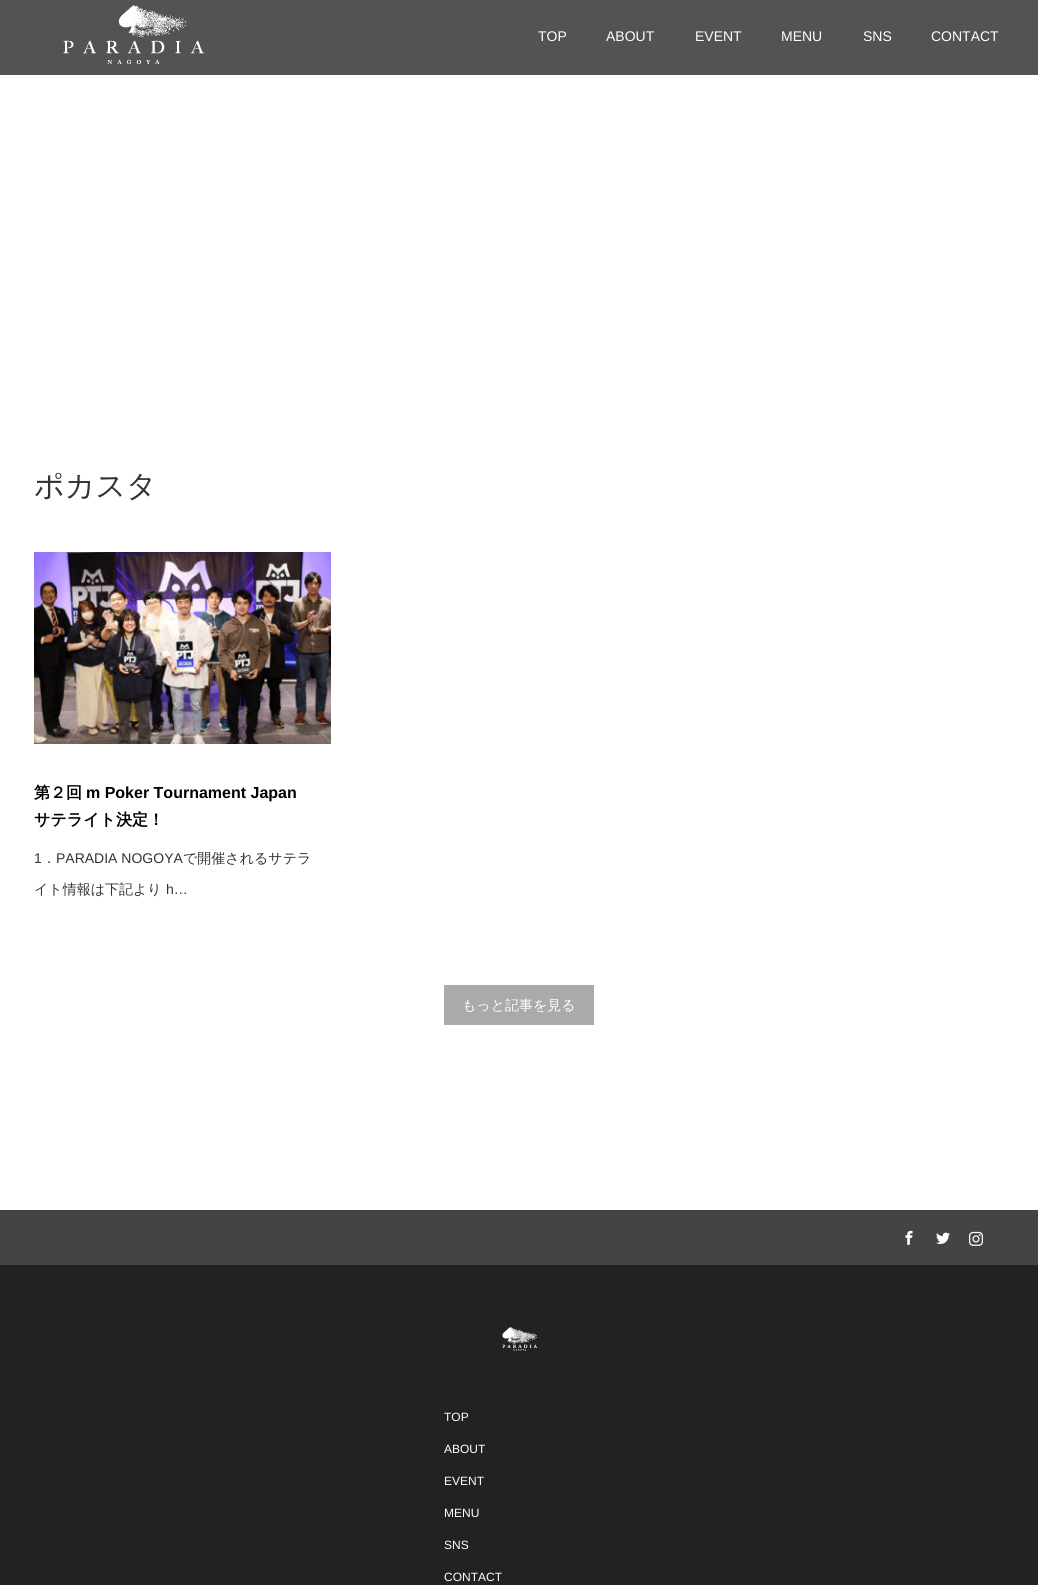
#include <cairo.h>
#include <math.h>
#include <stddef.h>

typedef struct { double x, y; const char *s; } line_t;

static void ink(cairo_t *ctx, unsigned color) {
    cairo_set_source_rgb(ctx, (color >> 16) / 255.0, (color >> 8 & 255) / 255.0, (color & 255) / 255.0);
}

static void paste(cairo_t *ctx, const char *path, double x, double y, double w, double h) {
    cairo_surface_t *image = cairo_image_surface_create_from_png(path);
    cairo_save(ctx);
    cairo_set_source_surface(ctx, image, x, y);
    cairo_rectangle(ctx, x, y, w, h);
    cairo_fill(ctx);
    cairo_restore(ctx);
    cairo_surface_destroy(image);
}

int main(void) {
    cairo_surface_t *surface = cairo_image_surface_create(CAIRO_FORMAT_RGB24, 1038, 1585);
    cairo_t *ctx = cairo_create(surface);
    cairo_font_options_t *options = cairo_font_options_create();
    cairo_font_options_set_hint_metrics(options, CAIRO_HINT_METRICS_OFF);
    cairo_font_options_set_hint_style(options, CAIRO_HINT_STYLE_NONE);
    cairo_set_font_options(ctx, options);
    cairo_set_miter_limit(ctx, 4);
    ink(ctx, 0xFFFFFF);
    cairo_paint(ctx);
    ink(ctx, 0x535353);
    cairo_rectangle(ctx, 0, 0, 1038, 75);
    cairo_fill(ctx);
    paste(ctx, "media/1.png", 63, 5, 141, 59);
    cairo_select_font_face(ctx, "Liberation Sans", CAIRO_FONT_SLANT_NORMAL, CAIRO_FONT_WEIGHT_NORMAL);
    cairo_set_font_size(ctx, 14);
    ink(ctx, 0xFFFFFF);
    {
        static const line_t items[] = {
            {538, 41, "TOP"},
            {606, 41, "ABOUT"},
            {695, 41, "EVENT"},
            {781, 41, "MENU"},
            {863, 41, "SNS"},
            {931, 41, "CONTACT"},
        };
        for (size_t i = 0; i < sizeof items / sizeof *items; i++) {
            cairo_move_to(ctx, items[i].x, items[i].y);
            cairo_show_text(ctx, items[i].s);
        }
    }
    cairo_select_font_face(ctx, "WenQuanYi Zen Hei Medium", CAIRO_FONT_SLANT_NORMAL, CAIRO_FONT_WEIGHT_NORMAL);
    cairo_set_font_size(ctx, 30);
    ink(ctx, 0x333333);
    cairo_move_to(ctx, 34, 496);
    cairo_show_text(ctx, "ポカスタ");
    paste(ctx, "media/2.png", 34, 552, 297, 192);
    cairo_select_font_face(ctx, "WenQuanYi Zen Hei", CAIRO_FONT_SLANT_NORMAL, CAIRO_FONT_WEIGHT_BOLD);
    cairo_set_font_size(ctx, 16);
    ink(ctx, 0x000000);
    cairo_move_to(ctx, 34, 798);
    cairo_show_text(ctx, "第２回");
    cairo_select_font_face(ctx, "Liberation Sans", CAIRO_FONT_SLANT_NORMAL, CAIRO_FONT_WEIGHT_BOLD);
    cairo_move_to(ctx, 86, 798);
    cairo_show_text(ctx, "m Poker Tournament Japan");
    cairo_select_font_face(ctx, "WenQuanYi Zen Hei", CAIRO_FONT_SLANT_NORMAL, CAIRO_FONT_WEIGHT_BOLD);
    cairo_move_to(ctx, 34, 825);
    cairo_show_text(ctx, "サテライト決定！");
    cairo_select_font_face(ctx, "Liberation Sans", CAIRO_FONT_SLANT_NORMAL, CAIRO_FONT_WEIGHT_NORMAL);
    cairo_set_font_size(ctx, 14);
    ink(ctx, 0x333333);
    cairo_move_to(ctx, 34, 863);
    cairo_show_text(ctx, "1");
    cairo_select_font_face(ctx, "WenQuanYi Zen Hei Medium", CAIRO_FONT_SLANT_NORMAL, CAIRO_FONT_WEIGHT_NORMAL);
    cairo_move_to(ctx, 42, 863);
    cairo_show_text(ctx, "．");
    cairo_select_font_face(ctx, "Liberation Sans", CAIRO_FONT_SLANT_NORMAL, CAIRO_FONT_WEIGHT_NORMAL);
    cairo_move_to(ctx, 56, 863);
    cairo_show_text(ctx, "PARADIA NOGOYA");
    cairo_select_font_face(ctx, "WenQuanYi Zen Hei Medium", CAIRO_FONT_SLANT_NORMAL, CAIRO_FONT_WEIGHT_NORMAL);
    cairo_move_to(ctx, 183, 863);
    cairo_show_text(ctx, "で開催されるサテラ");
    cairo_move_to(ctx, 34, 894);
    cairo_show_text(ctx, "イト情報は下記より");
    cairo_select_font_face(ctx, "Liberation Sans", CAIRO_FONT_SLANT_NORMAL, CAIRO_FONT_WEIGHT_NORMAL);
    cairo_move_to(ctx, 166, 894);
    cairo_show_text(ctx, "h…");
    ink(ctx, 0xAAAAAA);
    cairo_rectangle(ctx, 444, 985, 150, 40);
    cairo_fill(ctx);
    cairo_select_font_face(ctx, "WenQuanYi Zen Hei Medium", CAIRO_FONT_SLANT_NORMAL, CAIRO_FONT_WEIGHT_NORMAL);
    ink(ctx, 0xFFFFFF);
    cairo_move_to(ctx, 462, 1010);
    cairo_show_text(ctx, "もっと記事を見る");
    ink(ctx, 0x444444);
    cairo_rectangle(ctx, 0, 1210, 1038, 55);
    cairo_fill(ctx);
    paste(ctx, "media/3.png", 905, 1230, 8, 15);
    paste(ctx, "media/4.png", 936, 1232, 14, 12);
    paste(ctx, "media/5.png", 969, 1231, 14, 15);
    ink(ctx, 0x222222);
    cairo_rectangle(ctx, 0, 1265, 1038, 320);
    cairo_fill(ctx);
    paste(ctx, "media/6.png", 502, 1327, 35, 24);
    cairo_select_font_face(ctx, "Liberation Sans", CAIRO_FONT_SLANT_NORMAL, CAIRO_FONT_WEIGHT_NORMAL);
    cairo_set_font_size(ctx, 12);
    ink(ctx, 0xFFFFFF);
    {
        static const line_t items[] = {
            {444, 1421, "TOP"},
            {444, 1453, "ABOUT"},
            {444, 1485, "EVENT"},
            {444, 1517, "MENU"},
            {444, 1549, "SNS"},
            {444, 1581, "CONTACT"},
        };
        for (size_t i = 0; i < sizeof items / sizeof *items; i++) {
            cairo_move_to(ctx, items[i].x, items[i].y);
            cairo_show_text(ctx, items[i].s);
        }
    }
    cairo_surface_write_to_png(surface, "image.png");
    cairo_font_options_destroy(options);
    cairo_destroy(ctx);
    cairo_surface_destroy(surface);
    return 0;
}
